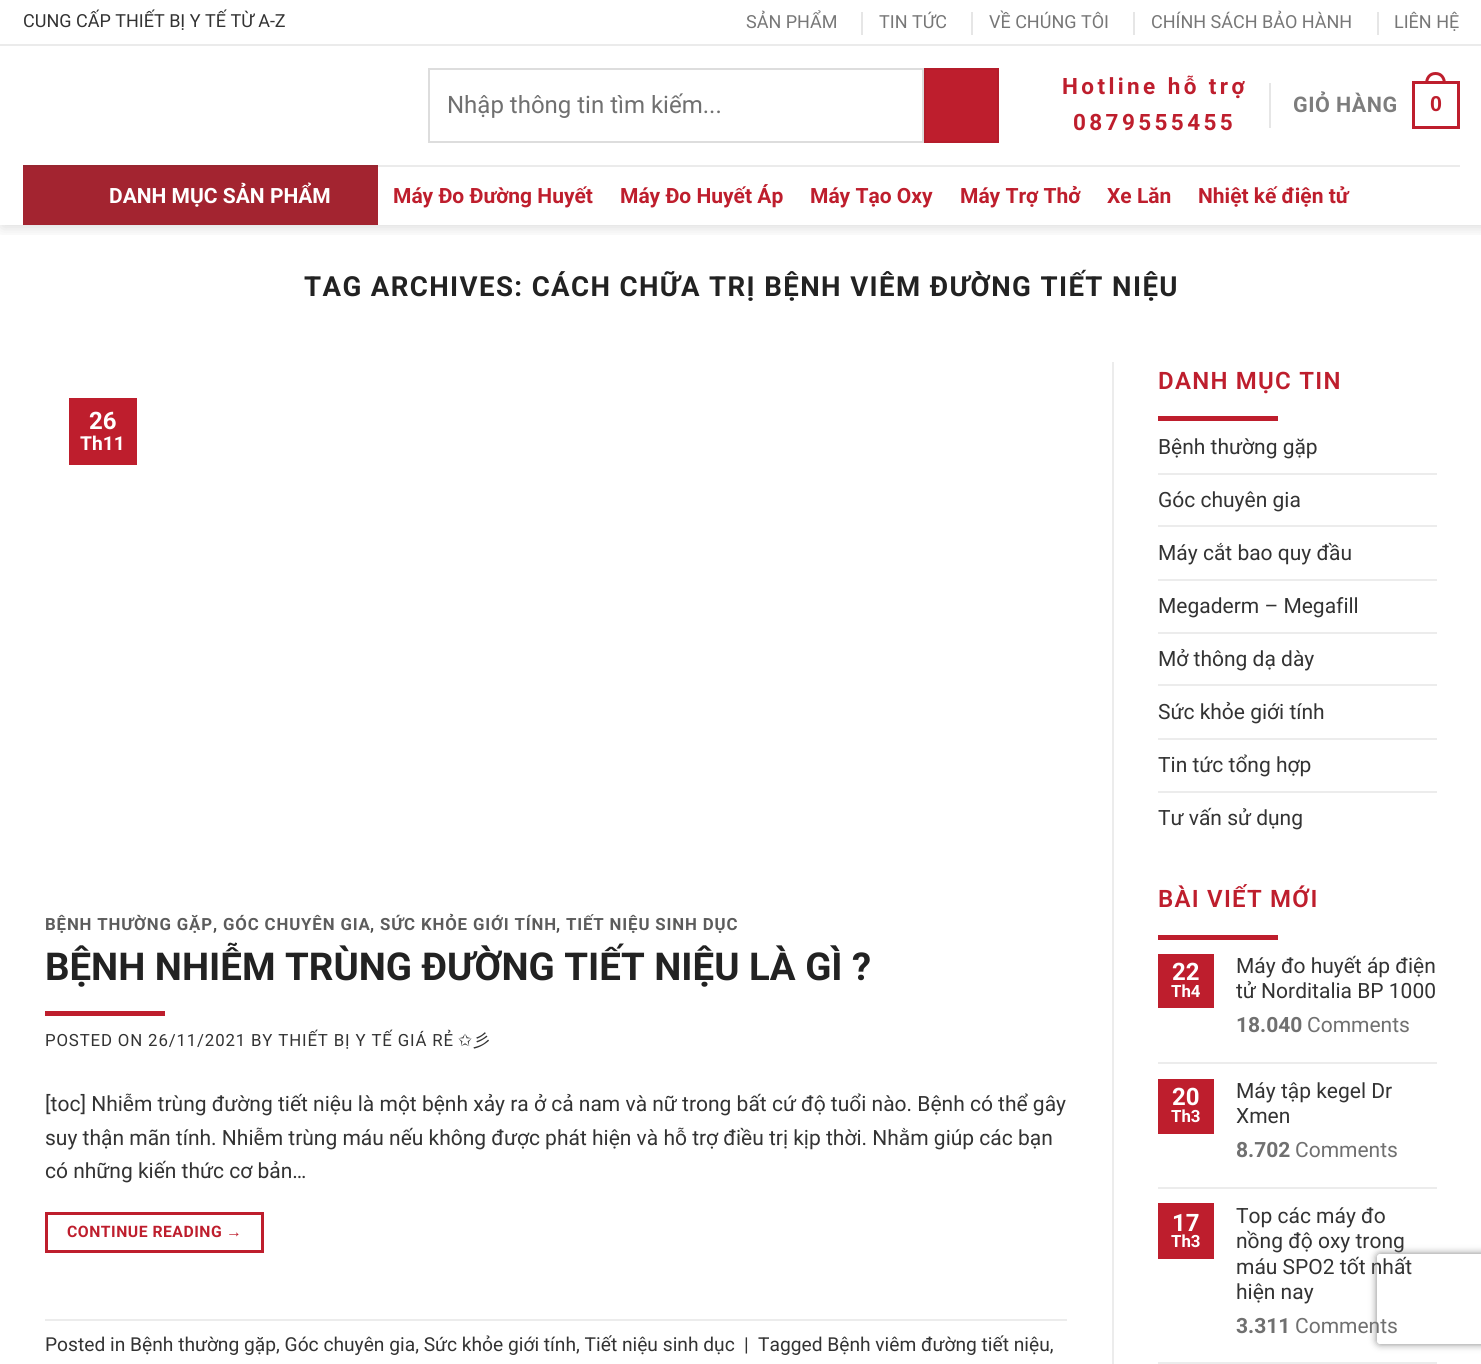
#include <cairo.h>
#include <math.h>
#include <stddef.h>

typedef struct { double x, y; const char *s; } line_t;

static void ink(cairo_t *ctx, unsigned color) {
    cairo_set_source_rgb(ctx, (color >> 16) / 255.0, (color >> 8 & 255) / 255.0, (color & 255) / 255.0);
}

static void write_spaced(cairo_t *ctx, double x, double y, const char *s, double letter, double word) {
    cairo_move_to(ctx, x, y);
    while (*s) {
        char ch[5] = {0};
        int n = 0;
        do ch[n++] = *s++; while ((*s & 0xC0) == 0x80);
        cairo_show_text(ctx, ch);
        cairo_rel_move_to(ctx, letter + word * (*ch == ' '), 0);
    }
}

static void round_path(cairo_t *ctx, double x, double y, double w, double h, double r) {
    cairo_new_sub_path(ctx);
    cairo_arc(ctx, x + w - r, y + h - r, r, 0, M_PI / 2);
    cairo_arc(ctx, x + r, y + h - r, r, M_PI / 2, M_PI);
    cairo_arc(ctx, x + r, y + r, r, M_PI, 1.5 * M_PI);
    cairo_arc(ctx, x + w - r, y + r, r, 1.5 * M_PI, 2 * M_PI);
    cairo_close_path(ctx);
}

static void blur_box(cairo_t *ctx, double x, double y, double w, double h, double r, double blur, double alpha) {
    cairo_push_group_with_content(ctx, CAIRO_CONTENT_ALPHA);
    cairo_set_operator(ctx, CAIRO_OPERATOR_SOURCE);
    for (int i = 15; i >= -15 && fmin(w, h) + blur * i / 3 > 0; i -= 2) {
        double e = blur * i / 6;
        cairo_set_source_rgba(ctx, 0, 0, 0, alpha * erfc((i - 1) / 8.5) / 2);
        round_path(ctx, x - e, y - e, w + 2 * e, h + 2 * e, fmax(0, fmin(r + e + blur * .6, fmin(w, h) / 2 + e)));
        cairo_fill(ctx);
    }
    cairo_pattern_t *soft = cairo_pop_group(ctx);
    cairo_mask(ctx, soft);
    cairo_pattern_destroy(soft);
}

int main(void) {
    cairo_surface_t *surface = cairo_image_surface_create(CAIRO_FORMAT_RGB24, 1481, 1364);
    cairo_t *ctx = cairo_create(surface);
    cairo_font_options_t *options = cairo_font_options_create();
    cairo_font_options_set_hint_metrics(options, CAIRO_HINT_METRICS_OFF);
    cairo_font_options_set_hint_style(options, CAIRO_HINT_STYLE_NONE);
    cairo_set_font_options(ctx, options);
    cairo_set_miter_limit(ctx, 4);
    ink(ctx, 0xFFFFFF);
    cairo_paint(ctx);
    ink(ctx, 0xEBEBEB);
    cairo_rectangle(ctx, 378, 165, 1082, 2);
    cairo_fill(ctx);
    cairo_save(ctx);
    cairo_rectangle(ctx, 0, 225, 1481, 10);
    cairo_clip(ctx);
    ink(ctx, 0x000000);
    blur_box(ctx, 2, 2, 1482, 225, 0, 7.5, 0.15);
    cairo_restore(ctx);
    cairo_rectangle(ctx, 0, 44, 1481, 2);
    cairo_fill(ctx);
    cairo_select_font_face(ctx, "Roboto", CAIRO_FONT_SLANT_NORMAL, CAIRO_FONT_WEIGHT_NORMAL);
    cairo_set_font_size(ctx, 18);
    ink(ctx, 0x333333);
    cairo_move_to(ctx, 23, 27);
    cairo_show_text(ctx, "CUNG CẤP THIẾT BỊ Y TẾ TỪ A-Z");
    ink(ctx, 0x777777);
    cairo_move_to(ctx, 746, 28);
    cairo_show_text(ctx, "SẢN PHẨM");
    ink(ctx, 0xE6E6E6);
    cairo_rectangle(ctx, 861, 12, 2, 23);
    cairo_fill(ctx);
    ink(ctx, 0x777777);
    cairo_move_to(ctx, 879, 28);
    cairo_show_text(ctx, "TIN TỨC");
    ink(ctx, 0xE6E6E6);
    cairo_rectangle(ctx, 971, 12, 2, 23);
    cairo_fill(ctx);
    ink(ctx, 0x777777);
    cairo_move_to(ctx, 989, 28);
    cairo_show_text(ctx, "VỀ CHÚNG TÔI");
    ink(ctx, 0xE6E6E6);
    cairo_rectangle(ctx, 1133, 12, 2, 23);
    cairo_fill(ctx);
    ink(ctx, 0x777777);
    cairo_move_to(ctx, 1151, 28);
    cairo_show_text(ctx, "CHÍNH SÁCH BẢO HÀNH");
    ink(ctx, 0xE6E6E6);
    cairo_rectangle(ctx, 1377, 12, 2, 23);
    cairo_fill(ctx);
    ink(ctx, 0x777777);
    cairo_move_to(ctx, 1394, 28);
    cairo_show_text(ctx, "LIÊN HỆ");
    cairo_rectangle(ctx, 429, 69, 494, 73);
    ink(ctx, 0xDDDDDD);
    cairo_stroke(ctx);
    cairo_set_font_size(ctx, 24);
    ink(ctx, 0x707070);
    cairo_move_to(ctx, 447, 113);
    cairo_show_text(ctx, "Nhập thông tin tìm kiếm...");
    ink(ctx, 0xBE1E2D);
    cairo_rectangle(ctx, 925, 69, 73, 73);
    cairo_fill_preserve(ctx);
    ink(ctx, 0xB51D2B);
    cairo_stroke(ctx);
    cairo_select_font_face(ctx, "Roboto", CAIRO_FONT_SLANT_NORMAL, CAIRO_FONT_WEIGHT_BOLD);
    cairo_set_font_size(ctx, 22.5);
    ink(ctx, 0xBE1E2D);
    write_spaced(ctx, 1062, 94, "Hotline hỗ trợ", 3.4, 0);
    write_spaced(ctx, 1073, 130, "0879555455", 3.4, 0);
    ink(ctx, 0xE6E6E6);
    cairo_rectangle(ctx, 1269, 83, 2, 45);
    cairo_fill(ctx);
    cairo_set_font_size(ctx, 21.5);
    ink(ctx, 0x7D7D7D);
    write_spaced(ctx, 1293, 112, "GIỎ HÀNG", 0.5, 0);
    cairo_rectangle(ctx, 1413.5, 82.5, 45, 45);
    ink(ctx, 0xBE1E2D);
    cairo_set_line_width(ctx, 3);
    cairo_stroke(ctx);
    cairo_set_fill_rule(ctx, CAIRO_FILL_RULE_EVEN_ODD);
    cairo_new_path(ctx);
    cairo_move_to(ctx, 1435.5, 72);
    cairo_curve_to(ctx, 1442.5, 72, 1446, 77.5, 1446, 84);
    cairo_line_to(ctx, 1425, 84);
    cairo_curve_to(ctx, 1425, 77.5, 1428.5, 72, 1435.5, 72);
    cairo_close_path(ctx);
    cairo_move_to(ctx, 1435.5, 75);
    cairo_curve_to(ctx, 1441, 75, 1443, 79.5, 1443, 84);
    cairo_line_to(ctx, 1428, 84);
    cairo_curve_to(ctx, 1428, 79.5, 1430, 75, 1435.5, 75);
    cairo_close_path(ctx);
    cairo_fill(ctx);
    cairo_select_font_face(ctx, "Liberation Sans", CAIRO_FONT_SLANT_NORMAL, CAIRO_FONT_WEIGHT_BOLD);
    write_spaced(ctx, 1430, 111, "0", 0.5, 0);
    ink(ctx, 0xA32430);
    cairo_rectangle(ctx, 23, 167, 355, 58);
    cairo_fill(ctx);
    ink(ctx, 0x982630);
    cairo_rectangle(ctx, 23, 165, 355, 2);
    cairo_fill(ctx);
    cairo_select_font_face(ctx, "Roboto", CAIRO_FONT_SLANT_NORMAL, CAIRO_FONT_WEIGHT_BOLD);
    cairo_set_font_size(ctx, 21);
    ink(ctx, 0xFFFFFF);
    cairo_move_to(ctx, 109, 203);
    cairo_show_text(ctx, "DANH MỤC SẢN PHẨM");
    ink(ctx, 0xBE1E2D);
    {
        static const line_t items[] = {
            {393, 203, "Máy Đo Đường Huyết"},
            {620, 203, "Máy Đo Huyết Áp"},
            {810, 203, "Máy Tạo Oxy"},
            {960, 203, "Máy Trợ Thở"},
            {1107, 203, "Xe Lăn"},
            {1198, 203, "Nhiệt kế điện tử"},
        };
        for (size_t i = 0; i < sizeof items / sizeof *items; i++) {
            cairo_move_to(ctx, items[i].x, items[i].y);
            cairo_show_text(ctx, items[i].s);
        }
    }
    cairo_set_font_size(ctx, 27.6);
    ink(ctx, 0x222222);
    write_spaced(ctx, 304, 296, "TAG ARCHIVES: CÁCH CHỮA TRỊ BỆNH VIÊM ĐƯỜNG TIẾT NIỆU", 1.38, 0);
    ink(ctx, 0xBE1E2D);
    cairo_rectangle(ctx, 69, 398, 68, 67);
    cairo_fill(ctx);
    cairo_set_font_size(ctx, 24);
    ink(ctx, 0xFFFFFF);
    cairo_move_to(ctx, 89, 429);
    cairo_show_text(ctx, "26");
    cairo_set_font_size(ctx, 19.2);
    cairo_move_to(ctx, 80, 450);
    cairo_show_text(ctx, "Th11");
    cairo_set_font_size(ctx, 16.8);
    ink(ctx, 0x5C5C5C);
    write_spaced(ctx, 45, 930, "BỆNH THƯỜNG GẶP", 0.85, 0);
    ink(ctx, 0x4E4E4E);
    write_spaced(ctx, 213, 930, ",", 0.85, 0);
    ink(ctx, 0x5C5C5C);
    write_spaced(ctx, 223, 930, "GÓC CHUYÊN GIA", 0.85, 0);
    ink(ctx, 0x4E4E4E);
    write_spaced(ctx, 370, 930, ",", 0.85, 0);
    ink(ctx, 0x5C5C5C);
    write_spaced(ctx, 380, 930, "SỨC KHỎE GIỚI TÍNH", 0.85, 0);
    ink(ctx, 0x4E4E4E);
    write_spaced(ctx, 556, 930, ",", 0.85, 0);
    ink(ctx, 0x5C5C5C);
    write_spaced(ctx, 566, 930, "TIẾT NIỆU SINH DỤC", 0.85, 0);
    cairo_set_font_size(ctx, 38.4);
    ink(ctx, 0x222222);
    cairo_move_to(ctx, 45, 980);
    cairo_show_text(ctx, "BỆNH NHIỄM TRÙNG ĐƯỜNG TIẾT NIỆU LÀ GÌ ?");
    ink(ctx, 0xBE1E2D);
    cairo_rectangle(ctx, 45, 1011, 120, 5);
    cairo_fill(ctx);
    cairo_select_font_face(ctx, "Roboto", CAIRO_FONT_SLANT_NORMAL, CAIRO_FONT_WEIGHT_NORMAL);
    cairo_set_font_size(ctx, 16.8);
    ink(ctx, 0x333333);
    write_spaced(ctx, 45, 1046, "POSTED ON 26/11/2021 BY THIẾT BỊ Y TẾ GIÁ RẺ", 0.85, 0);
    cairo_select_font_face(ctx, "DejaVu Sans", CAIRO_FONT_SLANT_NORMAL, CAIRO_FONT_WEIGHT_NORMAL);
    write_spaced(ctx, 458, 1046, "✩", 0.85, 0);
    cairo_select_font_face(ctx, "WenQuanYi Zen Hei Medium", CAIRO_FONT_SLANT_NORMAL, CAIRO_FONT_WEIGHT_NORMAL);
    write_spaced(ctx, 473, 1046, "彡", 0.85, 0);
    cairo_select_font_face(ctx, "Roboto", CAIRO_FONT_SLANT_NORMAL, CAIRO_FONT_WEIGHT_NORMAL);
    cairo_set_font_size(ctx, 21);
    {
        static const line_t items[] = {
            {45, 1111, "[toc] Nhiễm trùng đường tiết niệu là một bệnh xảy ra ở cả nam và nữ trong bất cứ độ tuổi nào. Bệnh có thể gây"},
            {45, 1145, "suy thận mãn tính. Nhiễm trùng máu nếu không được phát hiện và hỗ trợ điều trị kịp thời. Nhằm giúp các bạn"},
            {45, 1178, "có những kiến thức cơ bản…"},
        };
        for (size_t i = 0; i < sizeof items / sizeof *items; i++) {
            cairo_move_to(ctx, items[i].x, items[i].y);
            cairo_show_text(ctx, items[i].s);
        }
    }
    cairo_rectangle(ctx, 46.5, 1213.5, 216, 38);
    ink(ctx, 0xBE1E2D);
    cairo_stroke(ctx);
    cairo_select_font_face(ctx, "Roboto", CAIRO_FONT_SLANT_NORMAL, CAIRO_FONT_WEIGHT_BOLD);
    cairo_set_font_size(ctx, 15.75);
    write_spaced(ctx, 67, 1237, "CONTINUE READING", 0.5, 0);
    cairo_select_font_face(ctx, "Liberation Sans", CAIRO_FONT_SLANT_NORMAL, CAIRO_FONT_WEIGHT_BOLD);
    write_spaced(ctx, 226, 1237, "→", 0.5, 0);
    ink(ctx, 0xECECEC);
    cairo_rectangle(ctx, 45, 1319, 1022, 2);
    cairo_fill(ctx);
    cairo_select_font_face(ctx, "Roboto", CAIRO_FONT_SLANT_NORMAL, CAIRO_FONT_WEIGHT_NORMAL);
    cairo_set_font_size(ctx, 19.2);
    ink(ctx, 0x333333);
    {
        static const line_t items[] = {
            {45, 1351, "Posted in Bệnh thường gặp, Góc chuyên gia, Sức khỏe giới tính, Tiết niệu sinh dục"},
            {744, 1351, "|"},
            {758, 1351, "Tagged Bệnh viêm đường tiết niệu,"},
        };
        for (size_t i = 0; i < sizeof items / sizeof *items; i++) {
            cairo_move_to(ctx, items[i].x, items[i].y);
            cairo_show_text(ctx, items[i].s);
        }
    }
    ink(ctx, 0xECECEC);
    cairo_rectangle(ctx, 1112, 362, 2, 1002);
    cairo_fill(ctx);
    cairo_select_font_face(ctx, "Roboto SemiBold", CAIRO_FONT_SLANT_NORMAL, CAIRO_FONT_WEIGHT_NORMAL);
    cairo_set_font_size(ctx, 24);
    ink(ctx, 0xBE1E2D);
    write_spaced(ctx, 1158, 389, "DANH MỤC TIN", 1.25, 0);
    cairo_rectangle(ctx, 1158, 416, 120, 5);
    cairo_fill(ctx);
    cairo_select_font_face(ctx, "Roboto", CAIRO_FONT_SLANT_NORMAL, CAIRO_FONT_WEIGHT_NORMAL);
    cairo_set_font_size(ctx, 21);
    ink(ctx, 0x333333);
    cairo_move_to(ctx, 1158, 454);
    cairo_show_text(ctx, "Bệnh thường gặp");
    ink(ctx, 0xECECEC);
    cairo_rectangle(ctx, 1158, 473, 279, 2);
    cairo_fill(ctx);
    ink(ctx, 0x333333);
    cairo_move_to(ctx, 1158, 507);
    cairo_show_text(ctx, "Góc chuyên gia");
    ink(ctx, 0xECECEC);
    cairo_rectangle(ctx, 1158, 525, 279, 2);
    cairo_fill(ctx);
    ink(ctx, 0x333333);
    cairo_move_to(ctx, 1158, 560);
    cairo_show_text(ctx, "Máy cắt bao quy đầu");
    ink(ctx, 0xECECEC);
    cairo_rectangle(ctx, 1158, 579, 279, 2);
    cairo_fill(ctx);
    ink(ctx, 0x333333);
    cairo_move_to(ctx, 1158, 613);
    cairo_show_text(ctx, "Megaderm – Megafill");
    ink(ctx, 0xECECEC);
    cairo_rectangle(ctx, 1158, 632, 279, 2);
    cairo_fill(ctx);
    ink(ctx, 0x333333);
    cairo_move_to(ctx, 1158, 666);
    cairo_show_text(ctx, "Mở thông dạ dày");
    ink(ctx, 0xECECEC);
    cairo_rectangle(ctx, 1158, 684, 279, 2);
    cairo_fill(ctx);
    ink(ctx, 0x333333);
    cairo_move_to(ctx, 1158, 719);
    cairo_show_text(ctx, "Sức khỏe giới tính");
    ink(ctx, 0xECECEC);
    cairo_rectangle(ctx, 1158, 738, 279, 2);
    cairo_fill(ctx);
    ink(ctx, 0x333333);
    cairo_move_to(ctx, 1158, 772);
    cairo_show_text(ctx, "Tin tức tổng hợp");
    ink(ctx, 0xECECEC);
    cairo_rectangle(ctx, 1158, 791, 279, 2);
    cairo_fill(ctx);
    ink(ctx, 0x333333);
    cairo_move_to(ctx, 1158, 825);
    cairo_show_text(ctx, "Tư vấn sử dụng");
    cairo_select_font_face(ctx, "Roboto SemiBold", CAIRO_FONT_SLANT_NORMAL, CAIRO_FONT_WEIGHT_NORMAL);
    cairo_set_font_size(ctx, 24);
    ink(ctx, 0xBE1E2D);
    write_spaced(ctx, 1158, 907, "BÀI VIẾT MỚI", 1.25, 0);
    cairo_rectangle(ctx, 1158, 935, 120, 5);
    cairo_fill(ctx);
    cairo_rectangle(ctx, 1158, 954, 56, 54);
    cairo_fill(ctx);
    cairo_select_font_face(ctx, "Roboto", CAIRO_FONT_SLANT_NORMAL, CAIRO_FONT_WEIGHT_BOLD);
    ink(ctx, 0xFFFFFF);
    cairo_move_to(ctx, 1172, 980);
    cairo_show_text(ctx, "22");
    cairo_set_font_size(ctx, 16.8);
    cairo_move_to(ctx, 1171, 997);
    cairo_show_text(ctx, "Th4");
    cairo_select_font_face(ctx, "Roboto", CAIRO_FONT_SLANT_NORMAL, CAIRO_FONT_WEIGHT_NORMAL);
    cairo_set_font_size(ctx, 21);
    ink(ctx, 0x333333);
    cairo_move_to(ctx, 1236, 973);
    cairo_show_text(ctx, "Máy đo huyết áp điện");
    cairo_move_to(ctx, 1236, 998);
    cairo_show_text(ctx, "tử Norditalia BP 1000");
    cairo_select_font_face(ctx, "Roboto", CAIRO_FONT_SLANT_NORMAL, CAIRO_FONT_WEIGHT_BOLD);
    ink(ctx, 0x707070);
    cairo_move_to(ctx, 1236, 1032);
    cairo_show_text(ctx, "18.040");
    cairo_select_font_face(ctx, "Roboto", CAIRO_FONT_SLANT_NORMAL, CAIRO_FONT_WEIGHT_NORMAL);
    cairo_move_to(ctx, 1307, 1032);
    cairo_show_text(ctx, "Comments");
    ink(ctx, 0xECECEC);
    cairo_rectangle(ctx, 1158, 1062, 279, 2);
    cairo_fill(ctx);
    ink(ctx, 0xBE1E2D);
    cairo_rectangle(ctx, 1158, 1079, 56, 55);
    cairo_fill(ctx);
    cairo_select_font_face(ctx, "Roboto", CAIRO_FONT_SLANT_NORMAL, CAIRO_FONT_WEIGHT_BOLD);
    cairo_set_font_size(ctx, 24);
    ink(ctx, 0xFFFFFF);
    cairo_move_to(ctx, 1172, 1105);
    cairo_show_text(ctx, "20");
    cairo_set_font_size(ctx, 16.8);
    cairo_move_to(ctx, 1171, 1122);
    cairo_show_text(ctx, "Th3");
    cairo_select_font_face(ctx, "Roboto", CAIRO_FONT_SLANT_NORMAL, CAIRO_FONT_WEIGHT_NORMAL);
    cairo_set_font_size(ctx, 21);
    ink(ctx, 0x333333);
    cairo_move_to(ctx, 1236, 1098);
    cairo_show_text(ctx, "Máy tập kegel Dr");
    cairo_move_to(ctx, 1236, 1123);
    cairo_show_text(ctx, "Xmen");
    cairo_select_font_face(ctx, "Roboto", CAIRO_FONT_SLANT_NORMAL, CAIRO_FONT_WEIGHT_BOLD);
    ink(ctx, 0x707070);
    cairo_move_to(ctx, 1236, 1157);
    cairo_show_text(ctx, "8.702");
    cairo_select_font_face(ctx, "Roboto", CAIRO_FONT_SLANT_NORMAL, CAIRO_FONT_WEIGHT_NORMAL);
    cairo_move_to(ctx, 1295, 1157);
    cairo_show_text(ctx, "Comments");
    ink(ctx, 0xECECEC);
    cairo_rectangle(ctx, 1158, 1187, 279, 2);
    cairo_fill(ctx);
    ink(ctx, 0xBE1E2D);
    cairo_rectangle(ctx, 1158, 1203, 56, 56);
    cairo_fill(ctx);
    cairo_select_font_face(ctx, "Roboto", CAIRO_FONT_SLANT_NORMAL, CAIRO_FONT_WEIGHT_BOLD);
    cairo_set_font_size(ctx, 24);
    ink(ctx, 0xFFFFFF);
    cairo_move_to(ctx, 1172, 1231);
    cairo_show_text(ctx, "17");
    cairo_set_font_size(ctx, 16.8);
    cairo_move_to(ctx, 1171, 1247);
    cairo_show_text(ctx, "Th3");
    cairo_select_font_face(ctx, "Roboto", CAIRO_FONT_SLANT_NORMAL, CAIRO_FONT_WEIGHT_NORMAL);
    cairo_set_font_size(ctx, 21);
    ink(ctx, 0x333333);
    {
        static const line_t items[] = {
            {1236, 1223, "Top các máy đo"},
            {1236, 1248, "nồng độ oxy trong"},
            {1236, 1274, "máu SPO2 tốt nhất"},
            {1236, 1299, "hiện nay"},
        };
        for (size_t i = 0; i < sizeof items / sizeof *items; i++) {
            cairo_move_to(ctx, items[i].x, items[i].y);
            cairo_show_text(ctx, items[i].s);
        }
    }
    cairo_select_font_face(ctx, "Roboto", CAIRO_FONT_SLANT_NORMAL, CAIRO_FONT_WEIGHT_BOLD);
    ink(ctx, 0x707070);
    cairo_move_to(ctx, 1236, 1333);
    cairo_show_text(ctx, "3.311");
    cairo_select_font_face(ctx, "Roboto", CAIRO_FONT_SLANT_NORMAL, CAIRO_FONT_WEIGHT_NORMAL);
    cairo_move_to(ctx, 1295, 1333);
    cairo_show_text(ctx, "Comments");
    ink(ctx, 0xECECEC);
    cairo_rectangle(ctx, 1158, 1362, 279, 2);
    cairo_fill(ctx);
    cairo_save(ctx);
    cairo_new_path(ctx);
    cairo_move_to(ctx, 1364, 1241);
    cairo_line_to(ctx, 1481, 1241);
    cairo_line_to(ctx, 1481, 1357);
    cairo_line_to(ctx, 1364, 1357);
    cairo_close_path(ctx);
    cairo_move_to(ctx, 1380, 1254);
    cairo_line_to(ctx, 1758, 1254);
    cairo_curve_to(ctx, 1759.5, 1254, 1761, 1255.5, 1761, 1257);
    cairo_line_to(ctx, 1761, 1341);
    cairo_curve_to(ctx, 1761, 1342.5, 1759.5, 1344, 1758, 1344);
    cairo_line_to(ctx, 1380, 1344);
    cairo_curve_to(ctx, 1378.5, 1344, 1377, 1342.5, 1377, 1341);
    cairo_line_to(ctx, 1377, 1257);
    cairo_curve_to(ctx, 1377, 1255.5, 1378.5, 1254, 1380, 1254);
    cairo_close_path(ctx);
    cairo_clip(ctx);
    ink(ctx, 0x808080);
    blur_box(ctx, 1377, 1254, 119, 90, 3, 4, 1);
    cairo_restore(ctx);
    cairo_surface_write_to_png(surface, "image.png");
    cairo_font_options_destroy(options);
    cairo_destroy(ctx);
    cairo_surface_destroy(surface);
    return 0;
}
